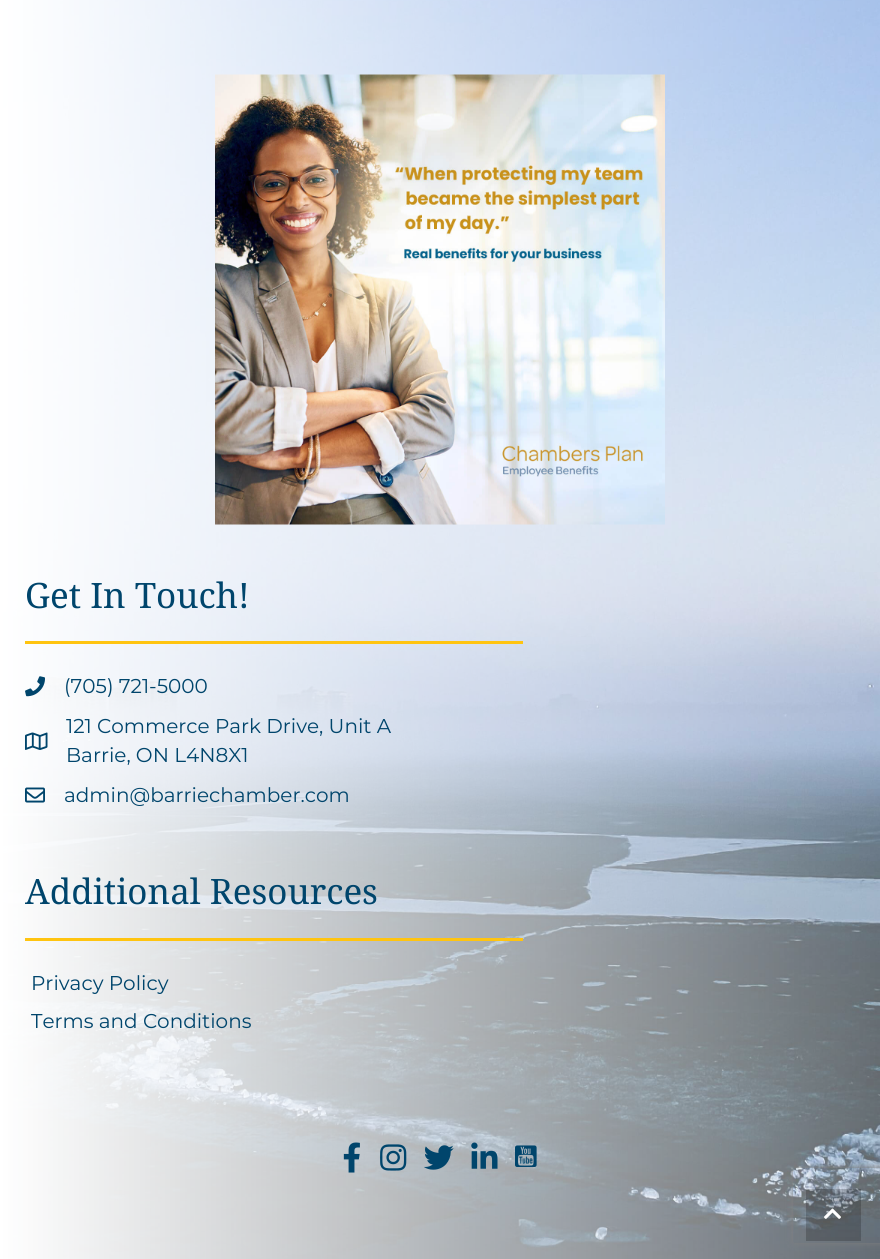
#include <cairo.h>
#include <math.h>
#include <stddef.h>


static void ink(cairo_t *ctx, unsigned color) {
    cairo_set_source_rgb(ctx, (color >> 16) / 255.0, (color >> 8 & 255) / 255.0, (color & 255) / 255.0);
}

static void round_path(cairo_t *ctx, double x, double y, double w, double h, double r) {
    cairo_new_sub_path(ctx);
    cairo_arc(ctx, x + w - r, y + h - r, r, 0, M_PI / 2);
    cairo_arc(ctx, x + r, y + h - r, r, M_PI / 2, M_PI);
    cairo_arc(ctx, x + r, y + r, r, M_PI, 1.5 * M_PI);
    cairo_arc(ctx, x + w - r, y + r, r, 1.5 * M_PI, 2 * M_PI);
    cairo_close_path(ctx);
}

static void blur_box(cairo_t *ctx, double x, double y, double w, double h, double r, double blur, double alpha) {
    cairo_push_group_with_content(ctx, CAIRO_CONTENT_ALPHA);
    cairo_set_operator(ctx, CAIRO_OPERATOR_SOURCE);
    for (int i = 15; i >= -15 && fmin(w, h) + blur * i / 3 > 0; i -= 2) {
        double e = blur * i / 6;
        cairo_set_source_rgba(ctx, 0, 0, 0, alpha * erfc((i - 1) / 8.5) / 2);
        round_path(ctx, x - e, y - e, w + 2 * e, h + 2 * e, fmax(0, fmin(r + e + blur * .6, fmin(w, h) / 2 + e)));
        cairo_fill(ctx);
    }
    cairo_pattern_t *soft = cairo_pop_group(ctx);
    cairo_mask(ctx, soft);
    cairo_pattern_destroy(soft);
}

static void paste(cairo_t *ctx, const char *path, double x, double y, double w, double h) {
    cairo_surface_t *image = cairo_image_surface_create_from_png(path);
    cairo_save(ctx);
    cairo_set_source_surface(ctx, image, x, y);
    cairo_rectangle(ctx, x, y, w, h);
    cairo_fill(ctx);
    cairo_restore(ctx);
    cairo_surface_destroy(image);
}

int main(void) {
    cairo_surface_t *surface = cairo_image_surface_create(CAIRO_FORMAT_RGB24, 880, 1259);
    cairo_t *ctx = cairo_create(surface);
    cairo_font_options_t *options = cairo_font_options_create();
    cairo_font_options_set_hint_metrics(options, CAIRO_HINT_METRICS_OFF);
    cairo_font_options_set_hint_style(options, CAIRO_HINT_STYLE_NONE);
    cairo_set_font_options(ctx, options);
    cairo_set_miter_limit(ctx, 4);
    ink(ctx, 0xFFFFFF);
    cairo_paint(ctx);
    paste(ctx, "media/1.png", 0, 0, 880, 1259);
    paste(ctx, "media/2.png", 215, 74, 450, 451);
    cairo_select_font_face(ctx, "Noto Serif", CAIRO_FONT_SLANT_NORMAL, CAIRO_FONT_WEIGHT_NORMAL);
    cairo_set_font_size(ctx, 35);
    ink(ctx, 0x00456C);
    cairo_move_to(ctx, 25, 608);
    cairo_show_text(ctx, "Get In Touch!");
    ink(ctx, 0xFFC410);
    cairo_rectangle(ctx, 25, 641, 498, 3);
    cairo_fill(ctx);
    paste(ctx, "media/3.png", 25, 676, 20, 21);
    cairo_select_font_face(ctx, "Montserrat", CAIRO_FONT_SLANT_NORMAL, CAIRO_FONT_WEIGHT_NORMAL);
    cairo_set_font_size(ctx, 20);
    ink(ctx, 0x00456C);
    cairo_move_to(ctx, 64, 693);
    cairo_show_text(ctx, "(705) 721-5000");
    paste(ctx, "media/4.png", 25, 732, 23, 18);
    cairo_move_to(ctx, 66, 733);
    cairo_show_text(ctx, "121 Commerce Park Drive, Unit A");
    cairo_move_to(ctx, 66, 762);
    cairo_show_text(ctx, "Barrie, ON L4N8X1");
    paste(ctx, "media/5.png", 25, 787, 20, 16);
    cairo_move_to(ctx, 64, 802);
    cairo_show_text(ctx, "admin@barriechamber.com");
    cairo_select_font_face(ctx, "Noto Serif", CAIRO_FONT_SLANT_NORMAL, CAIRO_FONT_WEIGHT_NORMAL);
    cairo_set_font_size(ctx, 35);
    cairo_move_to(ctx, 25, 904);
    cairo_show_text(ctx, "Additional Resources");
    ink(ctx, 0xFFC410);
    cairo_rectangle(ctx, 25, 938, 498, 3);
    cairo_fill(ctx);
    cairo_select_font_face(ctx, "Montserrat", CAIRO_FONT_SLANT_NORMAL, CAIRO_FONT_WEIGHT_NORMAL);
    cairo_set_font_size(ctx, 20);
    ink(ctx, 0x00456C);
    cairo_move_to(ctx, 31, 990);
    cairo_show_text(ctx, "Privacy Policy");
    cairo_move_to(ctx, 31, 1028);
    cairo_show_text(ctx, "Terms and Conditions");
    paste(ctx, "media/6.png", 343, 1142, 17, 31);
    paste(ctx, "media/7.png", 380, 1144, 27, 27);
    paste(ctx, "media/8.png", 424, 1145, 30, 25);
    paste(ctx, "media/9.png", 471, 1142, 27, 27);
    paste(ctx, "media/10.png", 515, 1145, 22, 22);
    cairo_save(ctx);
    cairo_set_fill_rule(ctx, CAIRO_FILL_RULE_EVEN_ODD);
    cairo_new_path(ctx);
    cairo_move_to(ctx, 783, 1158);
    cairo_line_to(ctx, 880, 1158);
    cairo_line_to(ctx, 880, 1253);
    cairo_line_to(ctx, 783, 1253);
    cairo_close_path(ctx);
    cairo_move_to(ctx, 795.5, 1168);
    cairo_line_to(ctx, 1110.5, 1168);
    cairo_curve_to(ctx, 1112, 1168, 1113, 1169, 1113, 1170.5);
    cairo_line_to(ctx, 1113, 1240.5);
    cairo_curve_to(ctx, 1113, 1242, 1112, 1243, 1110.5, 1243);
    cairo_line_to(ctx, 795.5, 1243);
    cairo_curve_to(ctx, 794, 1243, 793, 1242, 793, 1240.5);
    cairo_line_to(ctx, 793, 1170.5);
    cairo_curve_to(ctx, 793, 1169, 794, 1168, 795.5, 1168);
    cairo_close_path(ctx);
    cairo_clip(ctx);
    ink(ctx, 0x808080);
    blur_box(ctx, 793, 1168, 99, 75, 2.5, 3, 1);
    cairo_restore(ctx);
    cairo_set_source_rgba(ctx, 0, 0, 0, 0.2);
    cairo_rectangle(ctx, 806, 1189, 55, 52);
    cairo_fill(ctx);
    paste(ctx, "media/11.png", 824, 1208, 17, 11);
    cairo_surface_write_to_png(surface, "image.png");
    cairo_font_options_destroy(options);
    cairo_destroy(ctx);
    cairo_surface_destroy(surface);
    return 0;
}
